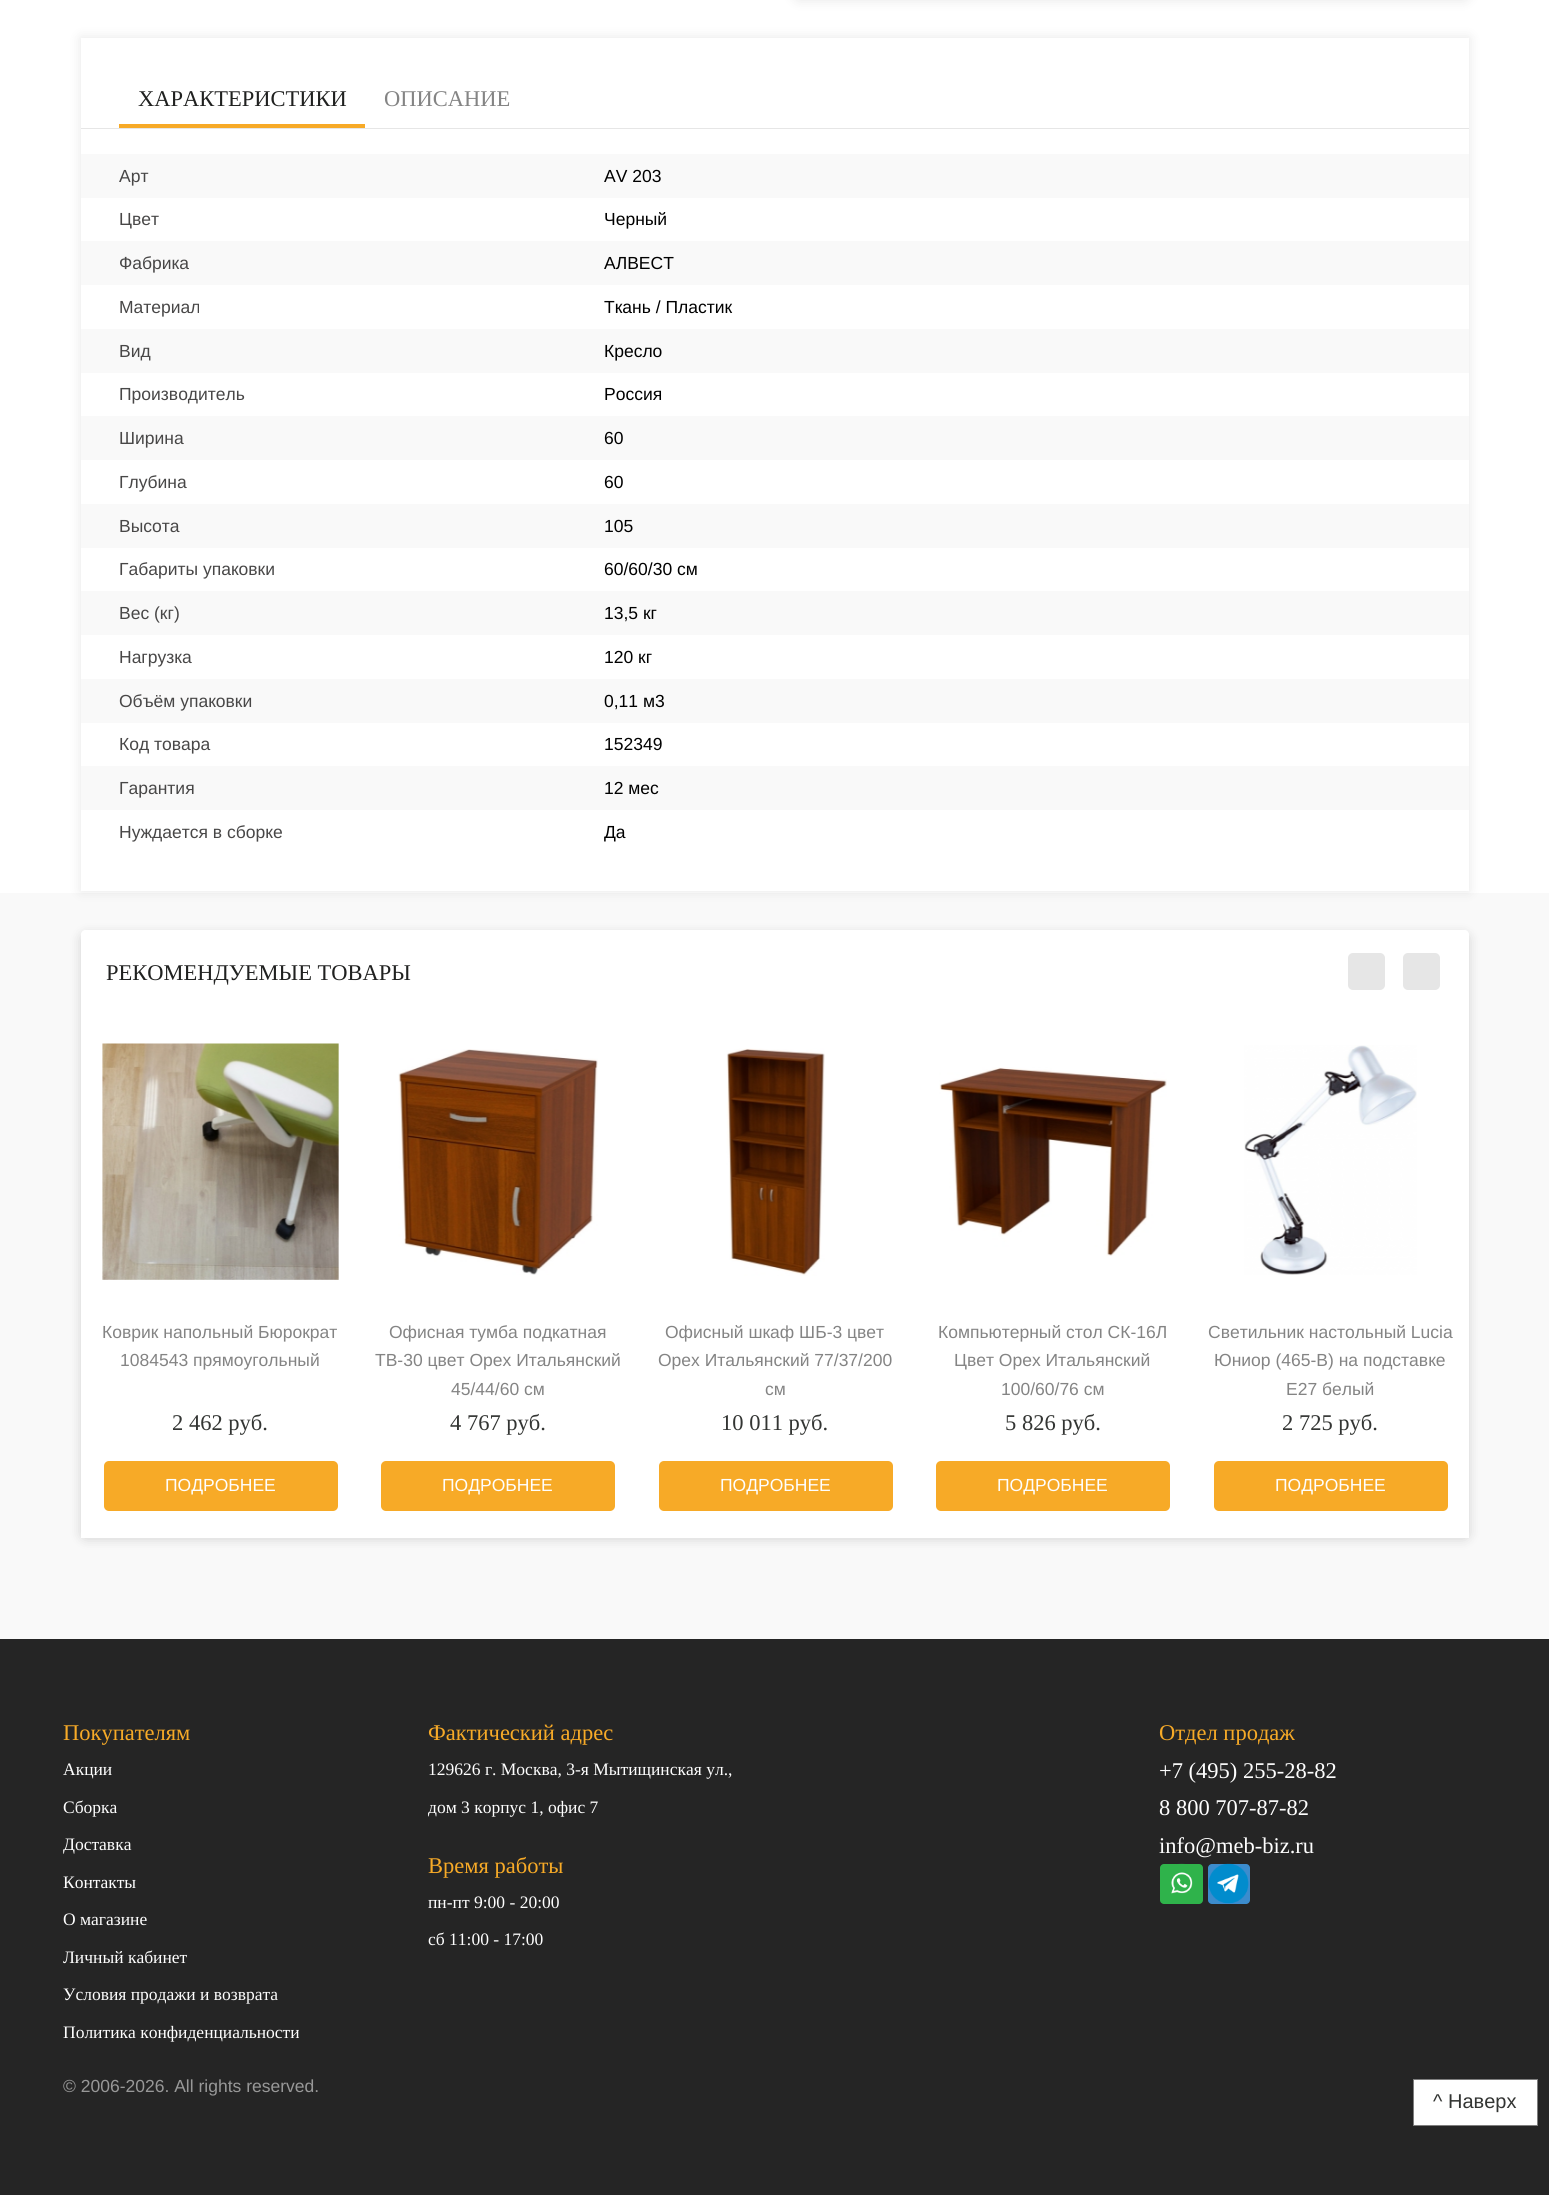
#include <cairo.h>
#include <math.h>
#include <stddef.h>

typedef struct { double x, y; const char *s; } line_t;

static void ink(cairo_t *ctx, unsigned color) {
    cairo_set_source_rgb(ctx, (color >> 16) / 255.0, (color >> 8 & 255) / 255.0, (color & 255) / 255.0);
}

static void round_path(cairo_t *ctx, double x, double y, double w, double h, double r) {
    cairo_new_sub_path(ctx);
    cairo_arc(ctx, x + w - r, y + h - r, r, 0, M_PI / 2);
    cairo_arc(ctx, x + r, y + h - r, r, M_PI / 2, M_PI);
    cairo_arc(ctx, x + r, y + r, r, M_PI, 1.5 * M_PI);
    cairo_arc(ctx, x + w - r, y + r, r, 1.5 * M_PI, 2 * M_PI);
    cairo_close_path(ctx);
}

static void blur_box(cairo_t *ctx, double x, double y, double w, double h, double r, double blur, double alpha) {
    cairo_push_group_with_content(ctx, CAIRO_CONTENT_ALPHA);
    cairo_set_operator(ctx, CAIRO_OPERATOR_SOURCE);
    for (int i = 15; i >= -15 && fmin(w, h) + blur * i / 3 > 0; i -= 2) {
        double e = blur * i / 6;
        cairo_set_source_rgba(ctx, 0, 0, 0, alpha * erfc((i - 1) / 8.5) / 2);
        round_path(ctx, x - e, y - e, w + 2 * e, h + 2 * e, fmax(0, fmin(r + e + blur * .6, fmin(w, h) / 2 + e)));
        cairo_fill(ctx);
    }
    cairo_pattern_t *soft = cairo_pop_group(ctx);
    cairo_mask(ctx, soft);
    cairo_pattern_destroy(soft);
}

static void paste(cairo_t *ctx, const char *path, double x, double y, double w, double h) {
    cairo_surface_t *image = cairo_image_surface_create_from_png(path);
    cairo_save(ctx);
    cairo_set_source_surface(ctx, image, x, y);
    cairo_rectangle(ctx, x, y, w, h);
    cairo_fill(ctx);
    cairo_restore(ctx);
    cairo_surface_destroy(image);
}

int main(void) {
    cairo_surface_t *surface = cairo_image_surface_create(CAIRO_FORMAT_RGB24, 1549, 2195);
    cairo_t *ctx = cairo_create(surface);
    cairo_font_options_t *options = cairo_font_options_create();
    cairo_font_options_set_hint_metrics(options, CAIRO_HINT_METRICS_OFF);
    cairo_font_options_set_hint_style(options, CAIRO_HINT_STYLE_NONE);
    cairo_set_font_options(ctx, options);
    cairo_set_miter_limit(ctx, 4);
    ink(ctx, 0xF9F9F9);
    cairo_paint(ctx);
    ink(ctx, 0xFFFFFF);
    cairo_rectangle(ctx, 0, 0, 1549, 893);
    cairo_fill(ctx);
    ink(ctx, 0x000000);
    blur_box(ctx, 794, -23, 675, 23, 5, 6, 0.1);
    blur_box(ctx, 81, 38, 1388, 853, 0, 6, 0.1);
    ink(ctx, 0xFFFFFF);
    cairo_rectangle(ctx, 81, 38, 1388, 853);
    cairo_fill(ctx);
    ink(ctx, 0xF7AA27);
    cairo_rectangle(ctx, 119, 124, 246, 4);
    cairo_fill(ctx);
    cairo_select_font_face(ctx, "Liberation Serif", CAIRO_FONT_SLANT_NORMAL, CAIRO_FONT_WEIGHT_NORMAL);
    cairo_set_font_size(ctx, 22.5);
    ink(ctx, 0x202120);
    cairo_move_to(ctx, 138, 106);
    cairo_show_text(ctx, "ХАРАКТЕРИСТИКИ");
    ink(ctx, 0x848484);
    cairo_move_to(ctx, 384, 106);
    cairo_show_text(ctx, "ОПИСАНИЕ");
    ink(ctx, 0xE6E6E6);
    cairo_rectangle(ctx, 81, 128, 1388, 1);
    cairo_fill(ctx);
    ink(ctx, 0xF9F9F9);
    cairo_rectangle(ctx, 81, 154, 1388, 44);
    cairo_fill(ctx);
    cairo_select_font_face(ctx, "Liberation Sans", CAIRO_FONT_SLANT_NORMAL, CAIRO_FONT_WEIGHT_NORMAL);
    cairo_set_font_size(ctx, 17.5);
    ink(ctx, 0x484747);
    cairo_move_to(ctx, 119, 182);
    cairo_show_text(ctx, "Арт");
    ink(ctx, 0x000000);
    cairo_move_to(ctx, 604, 182);
    cairo_show_text(ctx, "AV 203");
    ink(ctx, 0x484747);
    cairo_move_to(ctx, 119, 225);
    cairo_show_text(ctx, "Цвет");
    ink(ctx, 0x000000);
    cairo_move_to(ctx, 604, 225);
    cairo_show_text(ctx, "Черный");
    ink(ctx, 0xF9F9F9);
    cairo_rectangle(ctx, 81, 241, 1388, 44);
    cairo_fill(ctx);
    ink(ctx, 0x484747);
    cairo_move_to(ctx, 119, 269);
    cairo_show_text(ctx, "Фабрика");
    ink(ctx, 0x000000);
    cairo_move_to(ctx, 604, 269);
    cairo_show_text(ctx, "АЛВЕСТ");
    ink(ctx, 0x484747);
    cairo_move_to(ctx, 119, 313);
    cairo_show_text(ctx, "Материал");
    ink(ctx, 0x000000);
    cairo_move_to(ctx, 604, 313);
    cairo_show_text(ctx, "Ткань / Пластик");
    ink(ctx, 0xF9F9F9);
    cairo_rectangle(ctx, 81, 329, 1388, 44);
    cairo_fill(ctx);
    ink(ctx, 0x484747);
    cairo_move_to(ctx, 119, 357);
    cairo_show_text(ctx, "Вид");
    ink(ctx, 0x000000);
    cairo_move_to(ctx, 604, 357);
    cairo_show_text(ctx, "Кресло");
    ink(ctx, 0x484747);
    cairo_move_to(ctx, 119, 400);
    cairo_show_text(ctx, "Производитель");
    ink(ctx, 0x000000);
    cairo_move_to(ctx, 604, 400);
    cairo_show_text(ctx, "Россия");
    ink(ctx, 0xF9F9F9);
    cairo_rectangle(ctx, 81, 416, 1388, 44);
    cairo_fill(ctx);
    ink(ctx, 0x484747);
    cairo_move_to(ctx, 119, 444);
    cairo_show_text(ctx, "Ширина");
    ink(ctx, 0x000000);
    cairo_move_to(ctx, 604, 444);
    cairo_show_text(ctx, "60");
    ink(ctx, 0x484747);
    cairo_move_to(ctx, 119, 488);
    cairo_show_text(ctx, "Глубина");
    ink(ctx, 0x000000);
    cairo_move_to(ctx, 604, 488);
    cairo_show_text(ctx, "60");
    ink(ctx, 0xF9F9F9);
    cairo_rectangle(ctx, 81, 504, 1388, 44);
    cairo_fill(ctx);
    ink(ctx, 0x484747);
    cairo_move_to(ctx, 119, 532);
    cairo_show_text(ctx, "Высота");
    ink(ctx, 0x000000);
    cairo_move_to(ctx, 604, 532);
    cairo_show_text(ctx, "105");
    ink(ctx, 0x484747);
    cairo_move_to(ctx, 119, 575);
    cairo_show_text(ctx, "Габариты упаковки");
    ink(ctx, 0x000000);
    cairo_move_to(ctx, 604, 575);
    cairo_show_text(ctx, "60/60/30 см");
    ink(ctx, 0xF9F9F9);
    cairo_rectangle(ctx, 81, 591, 1388, 44);
    cairo_fill(ctx);
    ink(ctx, 0x484747);
    cairo_move_to(ctx, 119, 619);
    cairo_show_text(ctx, "Вес (кг)");
    ink(ctx, 0x000000);
    cairo_move_to(ctx, 604, 619);
    cairo_show_text(ctx, "13,5 кг");
    ink(ctx, 0x484747);
    cairo_move_to(ctx, 119, 663);
    cairo_show_text(ctx, "Нагрузка");
    ink(ctx, 0x000000);
    cairo_move_to(ctx, 604, 663);
    cairo_show_text(ctx, "120 кг");
    ink(ctx, 0xF9F9F9);
    cairo_rectangle(ctx, 81, 679, 1388, 44);
    cairo_fill(ctx);
    ink(ctx, 0x484747);
    cairo_move_to(ctx, 119, 707);
    cairo_show_text(ctx, "Объём упаковки");
    ink(ctx, 0x000000);
    cairo_move_to(ctx, 604, 707);
    cairo_show_text(ctx, "0,11 м3");
    ink(ctx, 0x484747);
    cairo_move_to(ctx, 119, 750);
    cairo_show_text(ctx, "Код товара");
    ink(ctx, 0x000000);
    cairo_move_to(ctx, 604, 750);
    cairo_show_text(ctx, "152349");
    ink(ctx, 0xF9F9F9);
    cairo_rectangle(ctx, 81, 766, 1388, 44);
    cairo_fill(ctx);
    ink(ctx, 0x484747);
    cairo_move_to(ctx, 119, 794);
    cairo_show_text(ctx, "Гарантия");
    ink(ctx, 0x000000);
    cairo_move_to(ctx, 604, 794);
    cairo_show_text(ctx, "12 мес");
    ink(ctx, 0x484747);
    cairo_move_to(ctx, 119, 838);
    cairo_show_text(ctx, "Нуждается в сборке");
    ink(ctx, 0x000000);
    cairo_move_to(ctx, 604, 838);
    cairo_show_text(ctx, "Да");
    ink(ctx, 0x000000);
    blur_box(ctx, 81, 934, 1388, 605, 5, 6, 0.15);
    ink(ctx, 0xFFFFFF);
    round_path(ctx, 81, 930, 1388, 605, 5);
    cairo_fill(ctx);
    round_path(ctx, 81, 930, 1388, 88, 5);
    cairo_fill(ctx);
    cairo_select_font_face(ctx, "Liberation Serif", CAIRO_FONT_SLANT_NORMAL, CAIRO_FONT_WEIGHT_NORMAL);
    cairo_set_font_size(ctx, 22.5);
    ink(ctx, 0x202120);
    cairo_move_to(ctx, 106, 980);
    cairo_show_text(ctx, "РЕКОМЕНДУЕМЫЕ ТОВАРЫ");
    ink(ctx, 0xE6E6E6);
    round_path(ctx, 1348, 953, 37, 37, 5);
    cairo_fill(ctx);
    round_path(ctx, 1403, 953, 37, 37, 5);
    cairo_fill(ctx);
    ink(ctx, 0xFFFFFF);
    cairo_rectangle(ctx, 81, 1531, 278, 7);
    cairo_fill(ctx);
    paste(ctx, "media/1.png", 102, 1043, 237, 237);
    cairo_select_font_face(ctx, "Liberation Sans", CAIRO_FONT_SLANT_NORMAL, CAIRO_FONT_WEIGHT_NORMAL);
    cairo_set_font_size(ctx, 17.5);
    ink(ctx, 0x848484);
    cairo_move_to(ctx, 102, 1338);
    cairo_show_text(ctx, "Коврик напольный Бюрократ");
    cairo_move_to(ctx, 120, 1366);
    cairo_show_text(ctx, "1084543 прямоугольный");
    cairo_select_font_face(ctx, "Liberation Serif", CAIRO_FONT_SLANT_NORMAL, CAIRO_FONT_WEIGHT_NORMAL);
    cairo_set_font_size(ctx, 22.5);
    ink(ctx, 0x333533);
    cairo_move_to(ctx, 172, 1430);
    cairo_show_text(ctx, "2 462 руб.");
    ink(ctx, 0xF7AA27);
    round_path(ctx, 104, 1461, 234, 50, 5);
    cairo_fill(ctx);
    cairo_select_font_face(ctx, "Liberation Sans", CAIRO_FONT_SLANT_NORMAL, CAIRO_FONT_WEIGHT_NORMAL);
    cairo_set_font_size(ctx, 17.5);
    ink(ctx, 0xFEFEFE);
    cairo_move_to(ctx, 165, 1491);
    cairo_show_text(ctx, "ПОДРОБНЕЕ");
    ink(ctx, 0xFFFFFF);
    cairo_rectangle(ctx, 359, 1535, 832, 3);
    cairo_fill(ctx);
    paste(ctx, "media/2.png", 398, 1049, 200, 226);
    ink(ctx, 0x848484);
    {
        static const line_t items[] = {
            {389, 1338, "Офисная тумба подкатная"},
            {375, 1366, "ТВ-30 цвет Орех Итальянский"},
            {451, 1395, "45/44/60 см"},
        };
        for (size_t i = 0; i < sizeof items / sizeof *items; i++) {
            cairo_move_to(ctx, items[i].x, items[i].y);
            cairo_show_text(ctx, items[i].s);
        }
    }
    cairo_select_font_face(ctx, "Liberation Serif", CAIRO_FONT_SLANT_NORMAL, CAIRO_FONT_WEIGHT_NORMAL);
    cairo_set_font_size(ctx, 22.5);
    ink(ctx, 0x333533);
    cairo_move_to(ctx, 450, 1430);
    cairo_show_text(ctx, "4 767 руб.");
    ink(ctx, 0xF7AA27);
    round_path(ctx, 381, 1461, 234, 50, 5);
    cairo_fill(ctx);
    cairo_select_font_face(ctx, "Liberation Sans", CAIRO_FONT_SLANT_NORMAL, CAIRO_FONT_WEIGHT_NORMAL);
    cairo_set_font_size(ctx, 17.5);
    ink(ctx, 0xFEFEFE);
    cairo_move_to(ctx, 442, 1491);
    cairo_show_text(ctx, "ПОДРОБНЕЕ");
    paste(ctx, "media/3.png", 726, 1048, 99, 228);
    ink(ctx, 0x848484);
    {
        static const line_t items[] = {
            {665, 1338, "Офисный шкаф ШБ-3 цвет"},
            {658, 1366, "Орех Итальянский 77/37/200"},
            {765, 1395, "см"},
        };
        for (size_t i = 0; i < sizeof items / sizeof *items; i++) {
            cairo_move_to(ctx, items[i].x, items[i].y);
            cairo_show_text(ctx, items[i].s);
        }
    }
    cairo_select_font_face(ctx, "Liberation Serif", CAIRO_FONT_SLANT_NORMAL, CAIRO_FONT_WEIGHT_NORMAL);
    cairo_set_font_size(ctx, 22.5);
    ink(ctx, 0x333533);
    cairo_move_to(ctx, 721, 1430);
    cairo_show_text(ctx, "10 011 руб.");
    ink(ctx, 0xF7AA27);
    round_path(ctx, 659, 1461, 234, 50, 5);
    cairo_fill(ctx);
    cairo_select_font_face(ctx, "Liberation Sans", CAIRO_FONT_SLANT_NORMAL, CAIRO_FONT_WEIGHT_NORMAL);
    cairo_set_font_size(ctx, 17.5);
    ink(ctx, 0xFEFEFE);
    cairo_move_to(ctx, 720, 1491);
    cairo_show_text(ctx, "ПОДРОБНЕЕ");
    paste(ctx, "media/4.png", 939, 1067, 228, 189);
    ink(ctx, 0x848484);
    {
        static const line_t items[] = {
            {938, 1338, "Компьютерный стол СК-16Л"},
            {954, 1366, "Цвет Орех Итальянский"},
            {1001, 1395, "100/60/76 см"},
        };
        for (size_t i = 0; i < sizeof items / sizeof *items; i++) {
            cairo_move_to(ctx, items[i].x, items[i].y);
            cairo_show_text(ctx, items[i].s);
        }
    }
    cairo_select_font_face(ctx, "Liberation Serif", CAIRO_FONT_SLANT_NORMAL, CAIRO_FONT_WEIGHT_NORMAL);
    cairo_set_font_size(ctx, 22.5);
    ink(ctx, 0x333533);
    cairo_move_to(ctx, 1005, 1430);
    cairo_show_text(ctx, "5 826 руб.");
    ink(ctx, 0xF7AA27);
    round_path(ctx, 936, 1461, 234, 50, 5);
    cairo_fill(ctx);
    cairo_select_font_face(ctx, "Liberation Sans", CAIRO_FONT_SLANT_NORMAL, CAIRO_FONT_WEIGHT_NORMAL);
    cairo_set_font_size(ctx, 17.5);
    ink(ctx, 0xFEFEFE);
    cairo_move_to(ctx, 997, 1491);
    cairo_show_text(ctx, "ПОДРОБНЕЕ");
    ink(ctx, 0xFFFFFF);
    cairo_rectangle(ctx, 1191, 1531, 278, 7);
    cairo_fill(ctx);
    paste(ctx, "media/5.png", 1244, 1045, 173, 230);
    ink(ctx, 0x848484);
    {
        static const line_t items[] = {
            {1208, 1338, "Светильник настольный Lucia"},
            {1214, 1366, "Юниор (465-B) на подставке"},
            {1286, 1395, "E27 белый"},
        };
        for (size_t i = 0; i < sizeof items / sizeof *items; i++) {
            cairo_move_to(ctx, items[i].x, items[i].y);
            cairo_show_text(ctx, items[i].s);
        }
    }
    cairo_select_font_face(ctx, "Liberation Serif", CAIRO_FONT_SLANT_NORMAL, CAIRO_FONT_WEIGHT_NORMAL);
    cairo_set_font_size(ctx, 22.5);
    ink(ctx, 0x333533);
    cairo_move_to(ctx, 1282, 1430);
    cairo_show_text(ctx, "2 725 руб.");
    ink(ctx, 0xF7AA27);
    round_path(ctx, 1214, 1461, 234, 50, 5);
    cairo_fill(ctx);
    cairo_select_font_face(ctx, "Liberation Sans", CAIRO_FONT_SLANT_NORMAL, CAIRO_FONT_WEIGHT_NORMAL);
    cairo_set_font_size(ctx, 17.5);
    ink(ctx, 0xFEFEFE);
    cairo_move_to(ctx, 1275, 1491);
    cairo_show_text(ctx, "ПОДРОБНЕЕ");
    ink(ctx, 0x252525);
    cairo_rectangle(ctx, 0, 1639, 1549, 556);
    cairo_fill(ctx);
    cairo_select_font_face(ctx, "Liberation Serif", CAIRO_FONT_SLANT_NORMAL, CAIRO_FONT_WEIGHT_NORMAL);
    cairo_set_font_size(ctx, 22.5);
    ink(ctx, 0xF7AA27);
    cairo_move_to(ctx, 63, 1740);
    cairo_show_text(ctx, "Покупателям");
    cairo_set_font_size(ctx, 17.5);
    ink(ctx, 0xFEFEFE);
    {
        static const line_t items[] = {
            {63, 1775, "Акции"},
            {63, 1813, "Сборка"},
            {63, 1850, "Доставка"},
            {63, 1888, "Контакты"},
            {63, 1925, "О магазине"},
            {63, 1963, "Личный кабинет"},
            {63, 2000, "Условия продажи и возврата"},
            {63, 2038, "Политика конфиденциальности"},
        };
        for (size_t i = 0; i < sizeof items / sizeof *items; i++) {
            cairo_move_to(ctx, items[i].x, items[i].y);
            cairo_show_text(ctx, items[i].s);
        }
    }
    cairo_set_font_size(ctx, 22.5);
    ink(ctx, 0xF7AA27);
    cairo_move_to(ctx, 428, 1740);
    cairo_show_text(ctx, "Фактический адрес");
    cairo_set_font_size(ctx, 17.5);
    ink(ctx, 0xFEFEFE);
    cairo_move_to(ctx, 428, 1775);
    cairo_show_text(ctx, "129626 г. Москва, 3-я Мытищинская ул.,");
    cairo_move_to(ctx, 428, 1813);
    cairo_show_text(ctx, "дом 3 корпус 1, офис 7");
    cairo_set_font_size(ctx, 22.5);
    ink(ctx, 0xF7AA27);
    cairo_move_to(ctx, 428, 1873);
    cairo_show_text(ctx, "Время работы");
    cairo_set_font_size(ctx, 17.5);
    ink(ctx, 0xFEFEFE);
    cairo_move_to(ctx, 428, 1908);
    cairo_show_text(ctx, "пн-пт 9:00 - 20:00");
    cairo_move_to(ctx, 428, 1945);
    cairo_show_text(ctx, "сб 11:00 - 17:00");
    cairo_set_font_size(ctx, 22.5);
    ink(ctx, 0xF7AA27);
    cairo_move_to(ctx, 1159, 1740);
    cairo_show_text(ctx, "Отдел продаж");
    ink(ctx, 0xFEFEFE);
    {
        static const line_t items[] = {
            {1159, 1778, "+7 (495) 255-28-82"},
            {1159, 1815, "8 800 707-87-82"},
            {1159, 1853, "info@meb-biz.ru"},
        };
        for (size_t i = 0; i < sizeof items / sizeof *items; i++) {
            cairo_move_to(ctx, items[i].x, items[i].y);
            cairo_show_text(ctx, items[i].s);
        }
    }
    ink(ctx, 0x2FB34B);
    round_path(ctx, 1160, 1864, 43, 40, 4);
    cairo_fill(ctx);
    paste(ctx, "media/6.png", 1171, 1863, 22, 31);
    ink(ctx, 0x3C8CCD);
    round_path(ctx, 1208, 1864, 42, 40, 4);
    cairo_fill(ctx);
    paste(ctx, "media/7.png", 1208, 1863, 41, 41);
    cairo_select_font_face(ctx, "Liberation Sans", CAIRO_FONT_SLANT_NORMAL, CAIRO_FONT_WEIGHT_NORMAL);
    cairo_set_font_size(ctx, 17.5);
    ink(ctx, 0x989898);
    cairo_move_to(ctx, 63, 2092);
    cairo_show_text(ctx, "© 2006-2026. All rights reserved.");
    ink(ctx, 0xFFFFFF);
    cairo_rectangle(ctx, 1413.5, 2079.5, 124, 46);
    cairo_fill_preserve(ctx);
    ink(ctx, 0x7E7E7E);
    cairo_set_line_width(ctx, 1);
    cairo_stroke(ctx);
    cairo_set_font_size(ctx, 20);
    ink(ctx, 0x333533);
    cairo_move_to(ctx, 1433, 2108);
    cairo_show_text(ctx, "^ Наверх");
    cairo_surface_write_to_png(surface, "image.png");
    cairo_font_options_destroy(options);
    cairo_destroy(ctx);
    cairo_surface_destroy(surface);
    return 0;
}
